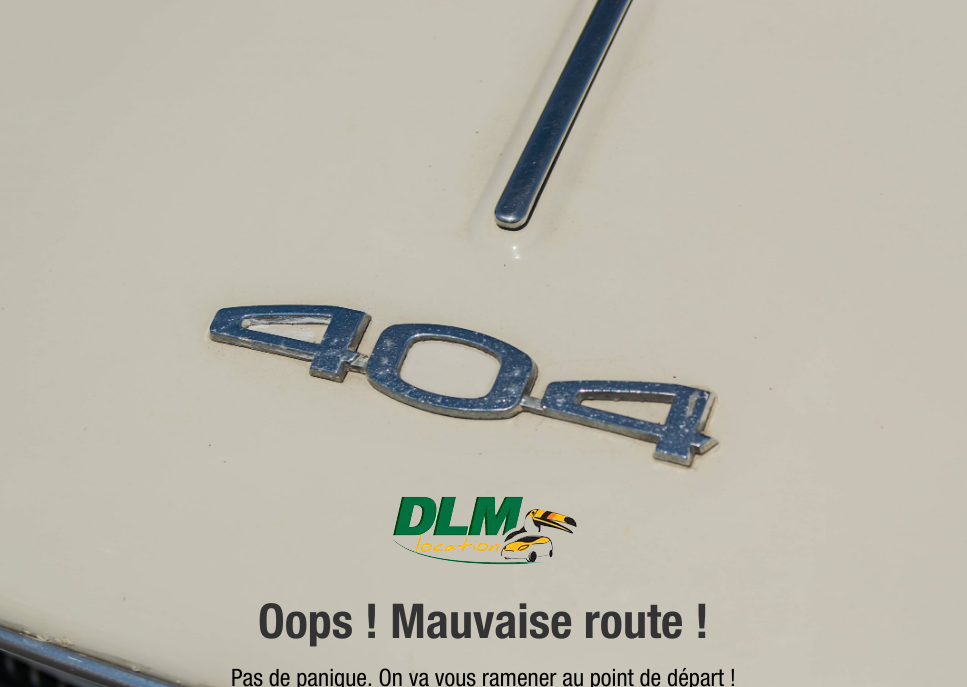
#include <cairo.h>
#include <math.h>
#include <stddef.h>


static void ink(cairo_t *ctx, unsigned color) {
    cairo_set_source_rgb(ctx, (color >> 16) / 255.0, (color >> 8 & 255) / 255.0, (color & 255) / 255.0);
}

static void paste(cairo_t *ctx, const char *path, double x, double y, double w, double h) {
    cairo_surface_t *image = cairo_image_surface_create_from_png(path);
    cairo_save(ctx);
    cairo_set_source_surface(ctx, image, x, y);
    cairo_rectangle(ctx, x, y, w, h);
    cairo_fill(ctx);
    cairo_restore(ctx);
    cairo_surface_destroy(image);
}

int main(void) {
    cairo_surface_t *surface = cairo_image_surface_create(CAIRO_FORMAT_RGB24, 967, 687);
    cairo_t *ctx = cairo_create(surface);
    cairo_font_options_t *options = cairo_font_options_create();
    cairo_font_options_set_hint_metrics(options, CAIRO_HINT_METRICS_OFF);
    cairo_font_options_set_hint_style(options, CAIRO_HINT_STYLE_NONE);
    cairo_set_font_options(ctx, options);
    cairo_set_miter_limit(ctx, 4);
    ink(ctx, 0xFFFFFF);
    cairo_paint(ctx);
    paste(ctx, "media/1.png", 0, 0, 967, 687);
    paste(ctx, "media/2.png", 393, 496, 184, 69);
    cairo_select_font_face(ctx, "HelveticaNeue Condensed", CAIRO_FONT_SLANT_NORMAL, CAIRO_FONT_WEIGHT_BOLD);
    cairo_set_font_size(ctx, 48);
    ink(ctx, 0x333333);
    cairo_move_to(ctx, 258, 638);
    cairo_show_text(ctx, "Oops ! Mauvaise route !");
    cairo_select_font_face(ctx, "HelveticaNeue Condensed", CAIRO_FONT_SLANT_NORMAL, CAIRO_FONT_WEIGHT_NORMAL);
    cairo_set_font_size(ctx, 24);
    ink(ctx, 0x000000);
    cairo_move_to(ctx, 231, 686);
    cairo_show_text(ctx, "Pas de panique. On va vous ramener au point de départ !");
    cairo_surface_write_to_png(surface, "image.png");
    cairo_font_options_destroy(options);
    cairo_destroy(ctx);
    cairo_surface_destroy(surface);
    return 0;
}
